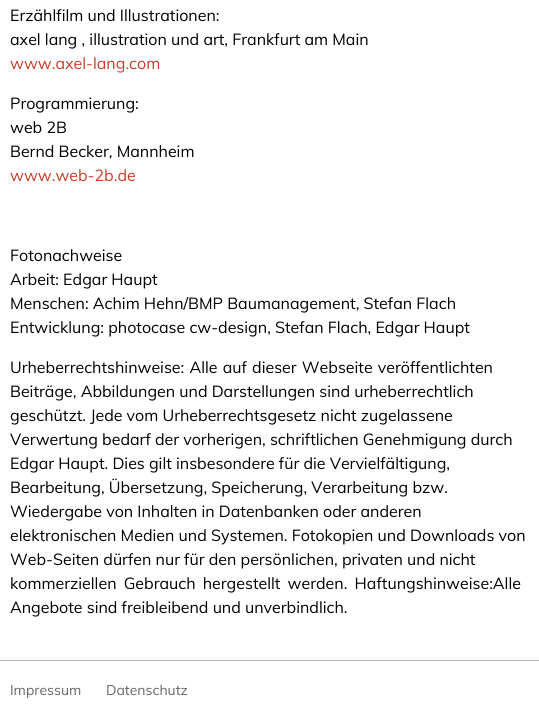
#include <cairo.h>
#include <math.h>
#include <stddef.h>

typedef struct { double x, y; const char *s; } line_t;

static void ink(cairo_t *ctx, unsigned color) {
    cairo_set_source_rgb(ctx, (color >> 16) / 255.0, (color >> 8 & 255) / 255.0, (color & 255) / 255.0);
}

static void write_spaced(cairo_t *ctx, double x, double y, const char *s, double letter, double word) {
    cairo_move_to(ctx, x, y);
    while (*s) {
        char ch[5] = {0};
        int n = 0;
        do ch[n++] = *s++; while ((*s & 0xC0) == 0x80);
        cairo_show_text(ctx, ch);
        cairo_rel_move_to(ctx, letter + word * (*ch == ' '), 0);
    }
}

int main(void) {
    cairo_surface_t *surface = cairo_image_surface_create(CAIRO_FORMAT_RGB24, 539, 717);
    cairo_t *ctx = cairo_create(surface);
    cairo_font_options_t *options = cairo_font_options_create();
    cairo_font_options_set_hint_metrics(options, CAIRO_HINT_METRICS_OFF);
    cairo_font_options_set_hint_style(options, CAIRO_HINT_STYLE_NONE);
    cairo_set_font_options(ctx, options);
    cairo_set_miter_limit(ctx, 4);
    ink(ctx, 0xFFFFFF);
    cairo_paint(ctx);
    cairo_select_font_face(ctx, "Muli", CAIRO_FONT_SLANT_NORMAL, CAIRO_FONT_WEIGHT_NORMAL);
    cairo_set_font_size(ctx, 16);
    ink(ctx, 0x000000);
    cairo_move_to(ctx, 10, 21);
    cairo_show_text(ctx, "Erzählfilm und Illustrationen:");
    cairo_move_to(ctx, 10, 45);
    cairo_show_text(ctx, "axel lang , illustration und art, Frankfurt am Main");
    ink(ctx, 0xCA3D27);
    cairo_move_to(ctx, 10, 69);
    cairo_show_text(ctx, "www.axel-lang.com");
    ink(ctx, 0x000000);
    {
        static const line_t items[] = {
            {10, 109, "Programmierung:"},
            {10, 133, "web 2B"},
            {10, 157, "Bernd Becker, Mannheim"},
        };
        for (size_t i = 0; i < sizeof items / sizeof *items; i++) {
            cairo_move_to(ctx, items[i].x, items[i].y);
            cairo_show_text(ctx, items[i].s);
        }
    }
    ink(ctx, 0xCA3D27);
    cairo_move_to(ctx, 10, 181);
    cairo_show_text(ctx, "www.web-2b.de");
    ink(ctx, 0x000000);
    {
        static const line_t items[] = {
            {10, 261, "Fotonachweise"},
            {10, 285, "Arbeit: Edgar Haupt"},
            {10, 309, "Menschen: Achim Hehn/BMP Baumanagement, Stefan Flach"},
            {10, 333, "Entwicklung: photocase cw-design, Stefan Flach, Edgar Haupt"},
        };
        for (size_t i = 0; i < sizeof items / sizeof *items; i++) {
            cairo_move_to(ctx, items[i].x, items[i].y);
            cairo_show_text(ctx, items[i].s);
        }
    }
    write_spaced(ctx, 10, 373, "Urheberrechtshinweise: Alle auf dieser Webseite veröffentlichten", 0, 1);
    {
        static const line_t items[] = {
            {10, 397, "Beiträge, Abbildungen und Darstellungen sind urheberrechtlich"},
            {10, 421, "geschützt. Jede vom Urheberrechtsgesetz nicht zugelassene"},
            {10, 445, "Verwertung bedarf der vorherigen, schriftlichen Genehmigung durch"},
            {10, 469, "Edgar Haupt. Dies gilt insbesondere für die Vervielfältigung,"},
            {10, 493, "Bearbeitung, Übersetzung, Speicherung, Verarbeitung bzw."},
            {10, 517, "Wiedergabe von Inhalten in Datenbanken oder anderen"},
            {10, 541, "elektronischen Medien und Systemen. Fotokopien und Downloads von"},
            {10, 565, "Web-Seiten dürfen nur für den persönlichen, privaten und nicht"},
        };
        for (size_t i = 0; i < sizeof items / sizeof *items; i++) {
            cairo_move_to(ctx, items[i].x, items[i].y);
            cairo_show_text(ctx, items[i].s);
        }
    }
    write_spaced(ctx, 10, 589, "kommerziellen Gebrauch hergestellt werden. Haftungshinweise:Alle", 0, 3);
    cairo_move_to(ctx, 10, 613);
    cairo_show_text(ctx, "Angebote sind freibleibend und unverbindlich.");
    ink(ctx, 0xB3B3B3);
    cairo_rectangle(ctx, 0, 660, 539, 1);
    cairo_fill(ctx);
    cairo_set_font_size(ctx, 14);
    ink(ctx, 0x666666);
    cairo_move_to(ctx, 10, 695);
    cairo_show_text(ctx, "Impressum");
    cairo_move_to(ctx, 106, 695);
    cairo_show_text(ctx, "Datenschutz");
    cairo_surface_write_to_png(surface, "image.png");
    cairo_font_options_destroy(options);
    cairo_destroy(ctx);
    cairo_surface_destroy(surface);
    return 0;
}
